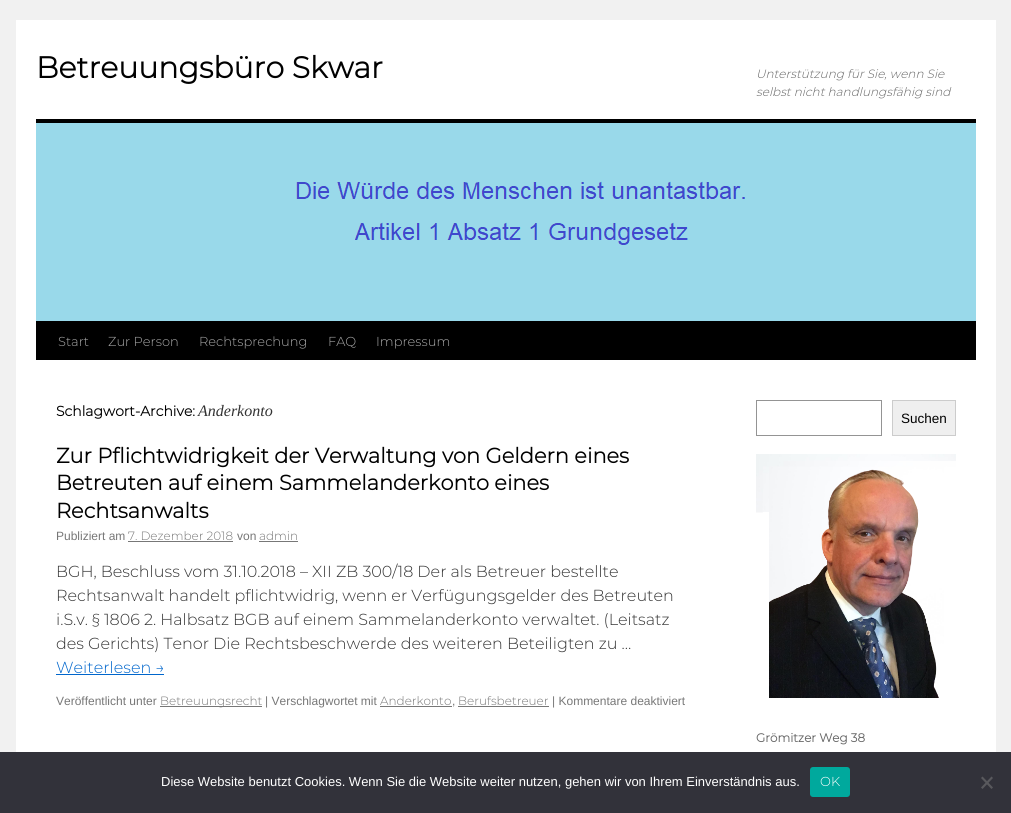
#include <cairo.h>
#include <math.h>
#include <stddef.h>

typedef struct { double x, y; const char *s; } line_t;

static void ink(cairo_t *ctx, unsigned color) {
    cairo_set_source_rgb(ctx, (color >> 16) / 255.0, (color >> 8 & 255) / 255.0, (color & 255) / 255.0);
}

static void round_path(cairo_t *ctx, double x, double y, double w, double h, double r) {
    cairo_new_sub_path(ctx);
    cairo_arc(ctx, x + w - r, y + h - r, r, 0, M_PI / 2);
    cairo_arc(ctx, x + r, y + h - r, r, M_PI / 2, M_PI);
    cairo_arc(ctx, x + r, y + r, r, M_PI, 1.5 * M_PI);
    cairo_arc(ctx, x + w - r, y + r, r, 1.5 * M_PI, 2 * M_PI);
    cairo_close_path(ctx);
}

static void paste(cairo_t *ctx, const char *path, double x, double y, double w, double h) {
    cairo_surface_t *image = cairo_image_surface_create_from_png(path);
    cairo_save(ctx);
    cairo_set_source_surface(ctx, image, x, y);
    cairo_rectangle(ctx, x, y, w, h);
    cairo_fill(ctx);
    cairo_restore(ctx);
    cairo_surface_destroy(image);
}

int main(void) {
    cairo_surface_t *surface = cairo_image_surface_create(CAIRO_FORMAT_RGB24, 1011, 813);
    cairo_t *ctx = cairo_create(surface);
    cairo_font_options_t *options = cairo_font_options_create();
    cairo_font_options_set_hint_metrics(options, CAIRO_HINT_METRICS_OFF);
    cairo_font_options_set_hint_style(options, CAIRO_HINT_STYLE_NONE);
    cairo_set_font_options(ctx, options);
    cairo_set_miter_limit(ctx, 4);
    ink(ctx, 0xF1F1F1);
    cairo_paint(ctx);
    ink(ctx, 0xFFFFFF);
    cairo_rectangle(ctx, 16, 20, 980, 732);
    cairo_fill(ctx);
    cairo_select_font_face(ctx, "Montserrat", CAIRO_FONT_SLANT_NORMAL, CAIRO_FONT_WEIGHT_BOLD);
    cairo_set_font_size(ctx, 30);
    ink(ctx, 0x000000);
    cairo_move_to(ctx, 36, 78);
    cairo_show_text(ctx, "Betreuungsbüro Skwar");
    cairo_select_font_face(ctx, "Montserrat Light", CAIRO_FONT_SLANT_ITALIC, CAIRO_FONT_WEIGHT_NORMAL);
    cairo_set_font_size(ctx, 12);
    ink(ctx, 0x666666);
    cairo_move_to(ctx, 756, 78);
    cairo_show_text(ctx, "Unterstützung für Sie, wenn Sie");
    cairo_move_to(ctx, 756, 96);
    cairo_show_text(ctx, "selbst nicht handlungsfähig sind");
    ink(ctx, 0x000000);
    cairo_rectangle(ctx, 36, 119, 940, 4);
    cairo_fill(ctx);
    cairo_rectangle(ctx, 36, 321, 940, 39);
    cairo_fill(ctx);
    paste(ctx, "media/1.png", 36, 123, 940, 198);
    cairo_select_font_face(ctx, "Montserrat Light", CAIRO_FONT_SLANT_NORMAL, CAIRO_FONT_WEIGHT_NORMAL);
    cairo_set_font_size(ctx, 13);
    ink(ctx, 0xAAAAAA);
    {
        static const line_t items[] = {
            {58, 346, "Start"},
            {108, 346, "Zur Person"},
            {199, 346, "Rechtsprechung"},
            {328, 346, "FAQ"},
            {376, 346, "Impressum"},
        };
        for (size_t i = 0; i < sizeof items / sizeof *items; i++) {
            cairo_move_to(ctx, items[i].x, items[i].y);
            cairo_show_text(ctx, items[i].s);
        }
    }
    cairo_select_font_face(ctx, "Montserrat", CAIRO_FONT_SLANT_NORMAL, CAIRO_FONT_WEIGHT_BOLD);
    cairo_set_font_size(ctx, 14);
    ink(ctx, 0x000000);
    cairo_move_to(ctx, 56, 416);
    cairo_show_text(ctx, "Schlagwort-Archive:");
    cairo_select_font_face(ctx, "Liberation Serif", CAIRO_FONT_SLANT_ITALIC, CAIRO_FONT_WEIGHT_NORMAL);
    cairo_set_font_size(ctx, 16);
    ink(ctx, 0x333333);
    cairo_move_to(ctx, 198, 416);
    cairo_show_text(ctx, "Anderkonto");
    cairo_select_font_face(ctx, "Montserrat", CAIRO_FONT_SLANT_NORMAL, CAIRO_FONT_WEIGHT_BOLD);
    cairo_set_font_size(ctx, 21);
    ink(ctx, 0x000000);
    {
        static const line_t items[] = {
            {56, 463, "Zur Pflichtwidrigkeit der Verwaltung von Geldern eines"},
            {56, 490, "Betreuten auf einem Sammelanderkonto eines"},
            {56, 518, "Rechtsanwalts"},
        };
        for (size_t i = 0; i < sizeof items / sizeof *items; i++) {
            cairo_move_to(ctx, items[i].x, items[i].y);
            cairo_show_text(ctx, items[i].s);
        }
    }
    cairo_select_font_face(ctx, "Liberation Sans", CAIRO_FONT_SLANT_NORMAL, CAIRO_FONT_WEIGHT_NORMAL);
    cairo_set_font_size(ctx, 12);
    ink(ctx, 0x777777);
    cairo_move_to(ctx, 56, 540);
    cairo_show_text(ctx, "Publiziert am");
    cairo_select_font_face(ctx, "Montserrat Light", CAIRO_FONT_SLANT_NORMAL, CAIRO_FONT_WEIGHT_NORMAL);
    cairo_move_to(ctx, 128, 540);
    cairo_show_text(ctx, "7. Dezember 2018");
    cairo_rectangle(ctx, 128, 541, 105, 1);
    cairo_fill(ctx);
    cairo_select_font_face(ctx, "Liberation Sans", CAIRO_FONT_SLANT_NORMAL, CAIRO_FONT_WEIGHT_NORMAL);
    cairo_move_to(ctx, 237, 540);
    cairo_show_text(ctx, "von");
    cairo_select_font_face(ctx, "Montserrat Light", CAIRO_FONT_SLANT_NORMAL, CAIRO_FONT_WEIGHT_NORMAL);
    cairo_move_to(ctx, 259, 540);
    cairo_show_text(ctx, "admin");
    cairo_rectangle(ctx, 259, 541, 39, 1);
    cairo_fill(ctx);
    cairo_set_font_size(ctx, 16);
    ink(ctx, 0x333333);
    {
        static const line_t items[] = {
            {56, 577, "BGH, Beschluss vom 31.10.2018 – XII ZB 300/18 Der als Betreuer bestellte"},
            {56, 601, "Rechtsanwalt handelt pflichtwidrig, wenn er Verfügungsgelder des Betreuten"},
            {56, 625, "i.S.v. § 1806 2. Halbsatz BGB auf einem Sammelanderkonto verwaltet. (Leitsatz"},
            {56, 649, "des Gerichts) Tenor Die Rechtsbeschwerde des weiteren Beteiligten zu …"},
        };
        for (size_t i = 0; i < sizeof items / sizeof *items; i++) {
            cairo_move_to(ctx, items[i].x, items[i].y);
            cairo_show_text(ctx, items[i].s);
        }
    }
    ink(ctx, 0x0066CC);
    cairo_move_to(ctx, 56, 673);
    cairo_show_text(ctx, "Weiterlesen →");
    cairo_rectangle(ctx, 56, 674, 108, 1);
    cairo_fill(ctx);
    cairo_select_font_face(ctx, "Liberation Sans", CAIRO_FONT_SLANT_NORMAL, CAIRO_FONT_WEIGHT_NORMAL);
    cairo_set_font_size(ctx, 12);
    ink(ctx, 0x777777);
    cairo_move_to(ctx, 56, 705);
    cairo_show_text(ctx, "Veröffentlicht unter");
    cairo_rectangle(ctx, 160, 706, 102, 1);
    cairo_fill(ctx);
    cairo_select_font_face(ctx, "Montserrat Light", CAIRO_FONT_SLANT_NORMAL, CAIRO_FONT_WEIGHT_NORMAL);
    cairo_move_to(ctx, 160, 705);
    cairo_show_text(ctx, "Betreuungsrecht");
    cairo_select_font_face(ctx, "Liberation Sans", CAIRO_FONT_SLANT_NORMAL, CAIRO_FONT_WEIGHT_NORMAL);
    cairo_move_to(ctx, 265, 705);
    cairo_show_text(ctx, "| Verschlagwortet mit");
    cairo_select_font_face(ctx, "Montserrat Light", CAIRO_FONT_SLANT_NORMAL, CAIRO_FONT_WEIGHT_NORMAL);
    cairo_move_to(ctx, 380, 705);
    cairo_show_text(ctx, "Anderkonto");
    cairo_select_font_face(ctx, "Liberation Sans", CAIRO_FONT_SLANT_NORMAL, CAIRO_FONT_WEIGHT_NORMAL);
    cairo_move_to(ctx, 452, 705);
    cairo_show_text(ctx, ",");
    cairo_rectangle(ctx, 380, 706, 72, 1);
    cairo_fill(ctx);
    cairo_rectangle(ctx, 458, 706, 91, 1);
    cairo_fill(ctx);
    cairo_select_font_face(ctx, "Montserrat Light", CAIRO_FONT_SLANT_NORMAL, CAIRO_FONT_WEIGHT_NORMAL);
    cairo_move_to(ctx, 458, 705);
    cairo_show_text(ctx, "Berufsbetreuer");
    cairo_select_font_face(ctx, "Liberation Sans", CAIRO_FONT_SLANT_NORMAL, CAIRO_FONT_WEIGHT_NORMAL);
    cairo_move_to(ctx, 552, 705);
    cairo_show_text(ctx, "| Kommentare deaktiviert");
    cairo_rectangle(ctx, 756.5, 400.5, 125, 35);
    ink(ctx, 0x949494);
    cairo_set_line_width(ctx, 1);
    cairo_stroke(ctx);
    ink(ctx, 0xEFEFEF);
    cairo_rectangle(ctx, 892.5, 400.5, 63, 35);
    cairo_fill_preserve(ctx);
    ink(ctx, 0xCCCCCC);
    cairo_stroke(ctx);
    cairo_set_font_size(ctx, 13.5);
    ink(ctx, 0x000000);
    cairo_move_to(ctx, 901, 423);
    cairo_show_text(ctx, "Suchen");
    paste(ctx, "media/2.png", 756, 454, 200, 244);
    cairo_select_font_face(ctx, "Montserrat", CAIRO_FONT_SLANT_NORMAL, CAIRO_FONT_WEIGHT_BOLD);
    cairo_set_font_size(ctx, 12);
    ink(ctx, 0x666666);
    cairo_move_to(ctx, 756, 742);
    cairo_show_text(ctx, "Grömitzer Weg 38");
    ink(ctx, 0x32323A);
    cairo_rectangle(ctx, 0, 752, 1011, 61);
    cairo_fill(ctx);
    cairo_select_font_face(ctx, "Liberation Sans", CAIRO_FONT_SLANT_NORMAL, CAIRO_FONT_WEIGHT_NORMAL);
    cairo_set_font_size(ctx, 13);
    ink(ctx, 0xFFFFFF);
    cairo_move_to(ctx, 161, 786);
    cairo_show_text(ctx, "Diese Website benutzt Cookies. Wenn Sie die Website weiter nutzen, gehen wir von Ihrem Einverständnis aus.");
    ink(ctx, 0x00A99D);
    round_path(ctx, 810, 767, 40, 30, 3);
    cairo_fill(ctx);
    cairo_select_font_face(ctx, "Montserrat Light", CAIRO_FONT_SLANT_NORMAL, CAIRO_FONT_WEIGHT_NORMAL);
    ink(ctx, 0xFFFFFF);
    cairo_move_to(ctx, 820, 786);
    cairo_show_text(ctx, "OK");
    ink(ctx, 0x59595D);
    cairo_new_path(ctx);
    cairo_move_to(ctx, 991.5, 776.5);
    cairo_line_to(ctx, 993, 778);
    cairo_line_to(ctx, 982.5, 789);
    cairo_line_to(ctx, 981, 787.5);
    cairo_close_path(ctx);
    cairo_fill(ctx);
    cairo_new_path(ctx);
    cairo_move_to(ctx, 981, 778);
    cairo_line_to(ctx, 982.5, 776.5);
    cairo_line_to(ctx, 993, 787.5);
    cairo_line_to(ctx, 991.5, 789);
    cairo_close_path(ctx);
    cairo_fill(ctx);
    cairo_surface_write_to_png(surface, "image.png");
    cairo_font_options_destroy(options);
    cairo_destroy(ctx);
    cairo_surface_destroy(surface);
    return 0;
}
